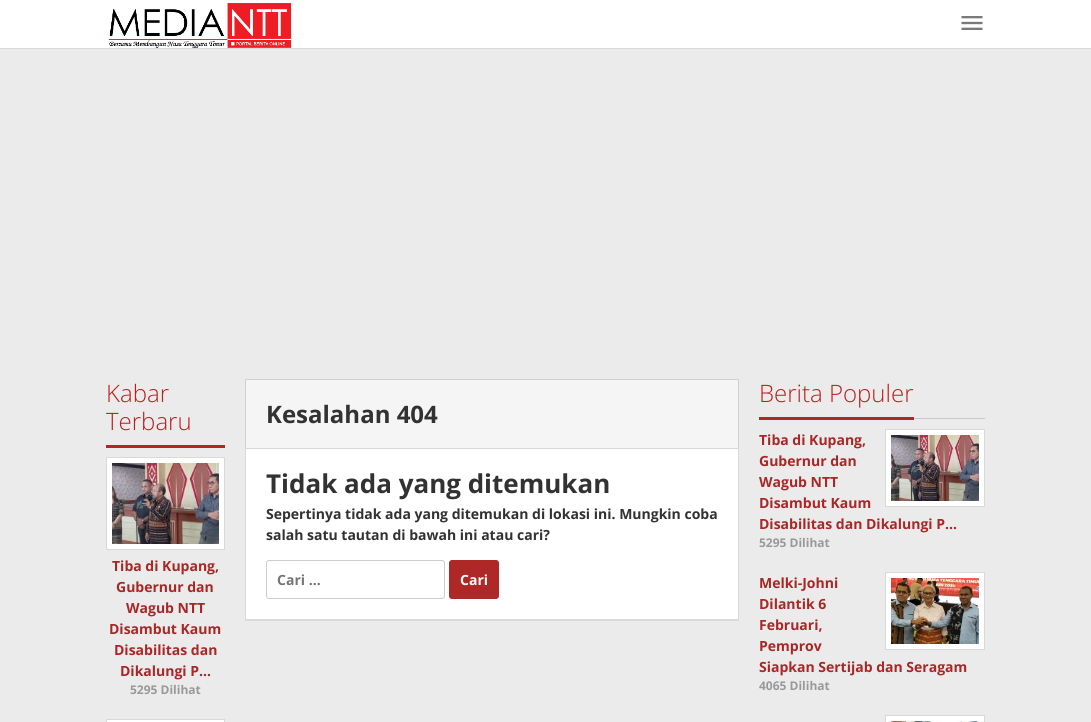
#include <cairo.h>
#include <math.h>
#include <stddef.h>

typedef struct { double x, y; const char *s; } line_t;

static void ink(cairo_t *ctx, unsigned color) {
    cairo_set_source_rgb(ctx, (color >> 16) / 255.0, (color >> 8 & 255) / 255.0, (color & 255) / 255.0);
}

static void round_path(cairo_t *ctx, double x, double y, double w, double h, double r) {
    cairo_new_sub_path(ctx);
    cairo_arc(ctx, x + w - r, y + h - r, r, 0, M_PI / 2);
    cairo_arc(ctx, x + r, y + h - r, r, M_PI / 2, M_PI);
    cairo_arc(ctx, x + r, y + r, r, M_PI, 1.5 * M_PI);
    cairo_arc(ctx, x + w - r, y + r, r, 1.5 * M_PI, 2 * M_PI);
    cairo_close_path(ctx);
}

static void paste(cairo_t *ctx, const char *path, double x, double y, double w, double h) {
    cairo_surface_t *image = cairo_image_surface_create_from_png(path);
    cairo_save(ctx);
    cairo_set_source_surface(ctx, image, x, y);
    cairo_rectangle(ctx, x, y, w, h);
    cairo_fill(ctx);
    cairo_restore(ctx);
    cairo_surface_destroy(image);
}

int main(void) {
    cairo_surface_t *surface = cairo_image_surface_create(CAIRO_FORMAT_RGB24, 1091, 722);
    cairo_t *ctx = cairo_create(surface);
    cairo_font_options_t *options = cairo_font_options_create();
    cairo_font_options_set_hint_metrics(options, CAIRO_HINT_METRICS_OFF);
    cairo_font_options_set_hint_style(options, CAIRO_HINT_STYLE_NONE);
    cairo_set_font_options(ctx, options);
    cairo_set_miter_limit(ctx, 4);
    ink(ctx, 0xEBEBEB);
    cairo_paint(ctx);
    ink(ctx, 0xFFFFFF);
    cairo_rectangle(ctx, 0, 0, 1091, 48);
    cairo_fill(ctx);
    ink(ctx, 0xD9D9D9);
    cairo_rectangle(ctx, 0, 48, 1091, 1);
    cairo_fill(ctx);
    paste(ctx, "media/1.png", 108, 3, 183, 45);
    paste(ctx, "media/2.png", 961, 16, 22, 14);
    ink(ctx, 0xAF2828);
    cairo_rectangle(ctx, 106, 445, 119, 3);
    cairo_fill(ctx);
    cairo_select_font_face(ctx, "Open Sans Light", CAIRO_FONT_SLANT_NORMAL, CAIRO_FONT_WEIGHT_NORMAL);
    cairo_set_font_size(ctx, 24);
    ink(ctx, 0xB9201F);
    cairo_move_to(ctx, 106, 402);
    cairo_show_text(ctx, "Kabar");
    cairo_move_to(ctx, 106, 430);
    cairo_show_text(ctx, "Terbaru");
    ink(ctx, 0xFFFFFF);
    cairo_rectangle(ctx, 106.5, 457.5, 118, 92);
    cairo_fill_preserve(ctx);
    ink(ctx, 0xD9D9D9);
    cairo_set_line_width(ctx, 1);
    cairo_stroke(ctx);
    paste(ctx, "media/3.png", 112, 463, 107, 81);
    cairo_select_font_face(ctx, "Open Sans", CAIRO_FONT_SLANT_NORMAL, CAIRO_FONT_WEIGHT_BOLD);
    cairo_set_font_size(ctx, 14);
    ink(ctx, 0xAA2727);
    {
        static const line_t items[] = {
            {112, 571, "Tiba di Kupang,"},
            {116, 592, "Gubernur dan"},
            {126, 613, "Wagub NTT"},
            {109, 634, "Disambut Kaum"},
            {114, 655, "Disabilitas dan"},
            {120, 676, "Dikalungi P…"},
        };
        for (size_t i = 0; i < sizeof items / sizeof *items; i++) {
            cairo_move_to(ctx, items[i].x, items[i].y);
            cairo_show_text(ctx, items[i].s);
        }
    }
    cairo_set_font_size(ctx, 12);
    ink(ctx, 0x999999);
    cairo_move_to(ctx, 130, 694);
    cairo_show_text(ctx, "5295 Dilihat");
    ink(ctx, 0xFFFFFF);
    cairo_rectangle(ctx, 106.5, 719.5, 118, 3);
    cairo_fill_preserve(ctx);
    ink(ctx, 0xD9D9D9);
    cairo_stroke(ctx);
    ink(ctx, 0xF5F5F5);
    cairo_rectangle(ctx, 245.5, 379.5, 493, 69);
    cairo_fill_preserve(ctx);
    ink(ctx, 0xD0D0D0);
    cairo_stroke(ctx);
    cairo_set_font_size(ctx, 24);
    ink(ctx, 0x323233);
    cairo_move_to(ctx, 266, 423);
    cairo_show_text(ctx, "Kesalahan 404");
    ink(ctx, 0xFFFFFF);
    cairo_rectangle(ctx, 246, 449, 492, 170);
    cairo_fill(ctx);
    cairo_rectangle(ctx, 245.5, 448.5, 493, 172);
    ink(ctx, 0xD9D9D9);
    cairo_stroke(ctx);
    cairo_rectangle(ctx, 246, 619, 492, 1);
    cairo_fill(ctx);
    cairo_set_font_size(ctx, 26);
    ink(ctx, 0x323233);
    cairo_move_to(ctx, 266, 493);
    cairo_show_text(ctx, "Tidak ada yang ditemukan");
    cairo_set_font_size(ctx, 14);
    cairo_move_to(ctx, 266, 519);
    cairo_show_text(ctx, "Sepertinya tidak ada yang ditemukan di lokasi ini. Mungkin coba");
    cairo_move_to(ctx, 266, 540);
    cairo_show_text(ctx, "salah satu tautan di bawah ini atau cari?");
    round_path(ctx, 266.5, 560.5, 178, 38, 2.5);
    ink(ctx, 0xCCCCCC);
    cairo_stroke(ctx);
    ink(ctx, 0x757575);
    cairo_move_to(ctx, 277, 585);
    cairo_show_text(ctx, "Cari …");
    ink(ctx, 0xAF2828);
    round_path(ctx, 449.5, 560.5, 49, 38, 2.5);
    cairo_fill_preserve(ctx);
    cairo_stroke(ctx);
    ink(ctx, 0xFFFFFF);
    cairo_move_to(ctx, 460, 585);
    cairo_show_text(ctx, "Cari");
    ink(ctx, 0xC8C8C8);
    cairo_rectangle(ctx, 914, 418, 71, 1);
    cairo_fill(ctx);
    ink(ctx, 0xAF2828);
    cairo_rectangle(ctx, 759, 417, 155, 3);
    cairo_fill(ctx);
    cairo_select_font_face(ctx, "Open Sans Light", CAIRO_FONT_SLANT_NORMAL, CAIRO_FONT_WEIGHT_NORMAL);
    cairo_set_font_size(ctx, 24);
    ink(ctx, 0xB9201F);
    cairo_move_to(ctx, 759, 402);
    cairo_show_text(ctx, "Berita Populer");
    cairo_select_font_face(ctx, "Open Sans", CAIRO_FONT_SLANT_NORMAL, CAIRO_FONT_WEIGHT_BOLD);
    cairo_set_font_size(ctx, 14);
    ink(ctx, 0xAA2727);
    cairo_move_to(ctx, 759, 445);
    cairo_show_text(ctx, "Tiba di Kupang,");
    ink(ctx, 0xFFFFFF);
    cairo_rectangle(ctx, 885.5, 429.5, 99, 77);
    cairo_fill_preserve(ctx);
    ink(ctx, 0xD9D9D9);
    cairo_stroke(ctx);
    paste(ctx, "media/4.png", 891, 435, 88, 66);
    ink(ctx, 0xAA2727);
    {
        static const line_t items[] = {
            {759, 466, "Gubernur dan"},
            {759, 487, "Wagub NTT"},
            {759, 508, "Disambut Kaum"},
            {759, 529, "Disabilitas dan Dikalungi P…"},
        };
        for (size_t i = 0; i < sizeof items / sizeof *items; i++) {
            cairo_move_to(ctx, items[i].x, items[i].y);
            cairo_show_text(ctx, items[i].s);
        }
    }
    cairo_set_font_size(ctx, 12);
    ink(ctx, 0x999999);
    cairo_move_to(ctx, 759, 547);
    cairo_show_text(ctx, "5295 Dilihat");
    cairo_set_font_size(ctx, 14);
    ink(ctx, 0xAA2727);
    cairo_move_to(ctx, 759, 588);
    cairo_show_text(ctx, "Melki-Johni");
    ink(ctx, 0xFFFFFF);
    cairo_rectangle(ctx, 885.5, 572.5, 99, 77);
    cairo_fill_preserve(ctx);
    ink(ctx, 0xD9D9D9);
    cairo_stroke(ctx);
    paste(ctx, "media/5.png", 891, 578, 88, 66);
    ink(ctx, 0xAA2727);
    {
        static const line_t items[] = {
            {759, 609, "Dilantik 6"},
            {759, 630, "Februari,"},
            {759, 651, "Pemprov"},
            {759, 672, "Siapkan Sertijab dan Seragam"},
        };
        for (size_t i = 0; i < sizeof items / sizeof *items; i++) {
            cairo_move_to(ctx, items[i].x, items[i].y);
            cairo_show_text(ctx, items[i].s);
        }
    }
    cairo_set_font_size(ctx, 12);
    ink(ctx, 0x999999);
    cairo_move_to(ctx, 759, 690);
    cairo_show_text(ctx, "4065 Dilihat");
    ink(ctx, 0xFFFFFF);
    cairo_rectangle(ctx, 885.5, 715.5, 99, 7);
    cairo_fill_preserve(ctx);
    ink(ctx, 0xD9D9D9);
    cairo_stroke(ctx);
    paste(ctx, "media/6.png", 891, 721, 87, 1);
    cairo_surface_write_to_png(surface, "image.png");
    cairo_font_options_destroy(options);
    cairo_destroy(ctx);
    cairo_surface_destroy(surface);
    return 0;
}
